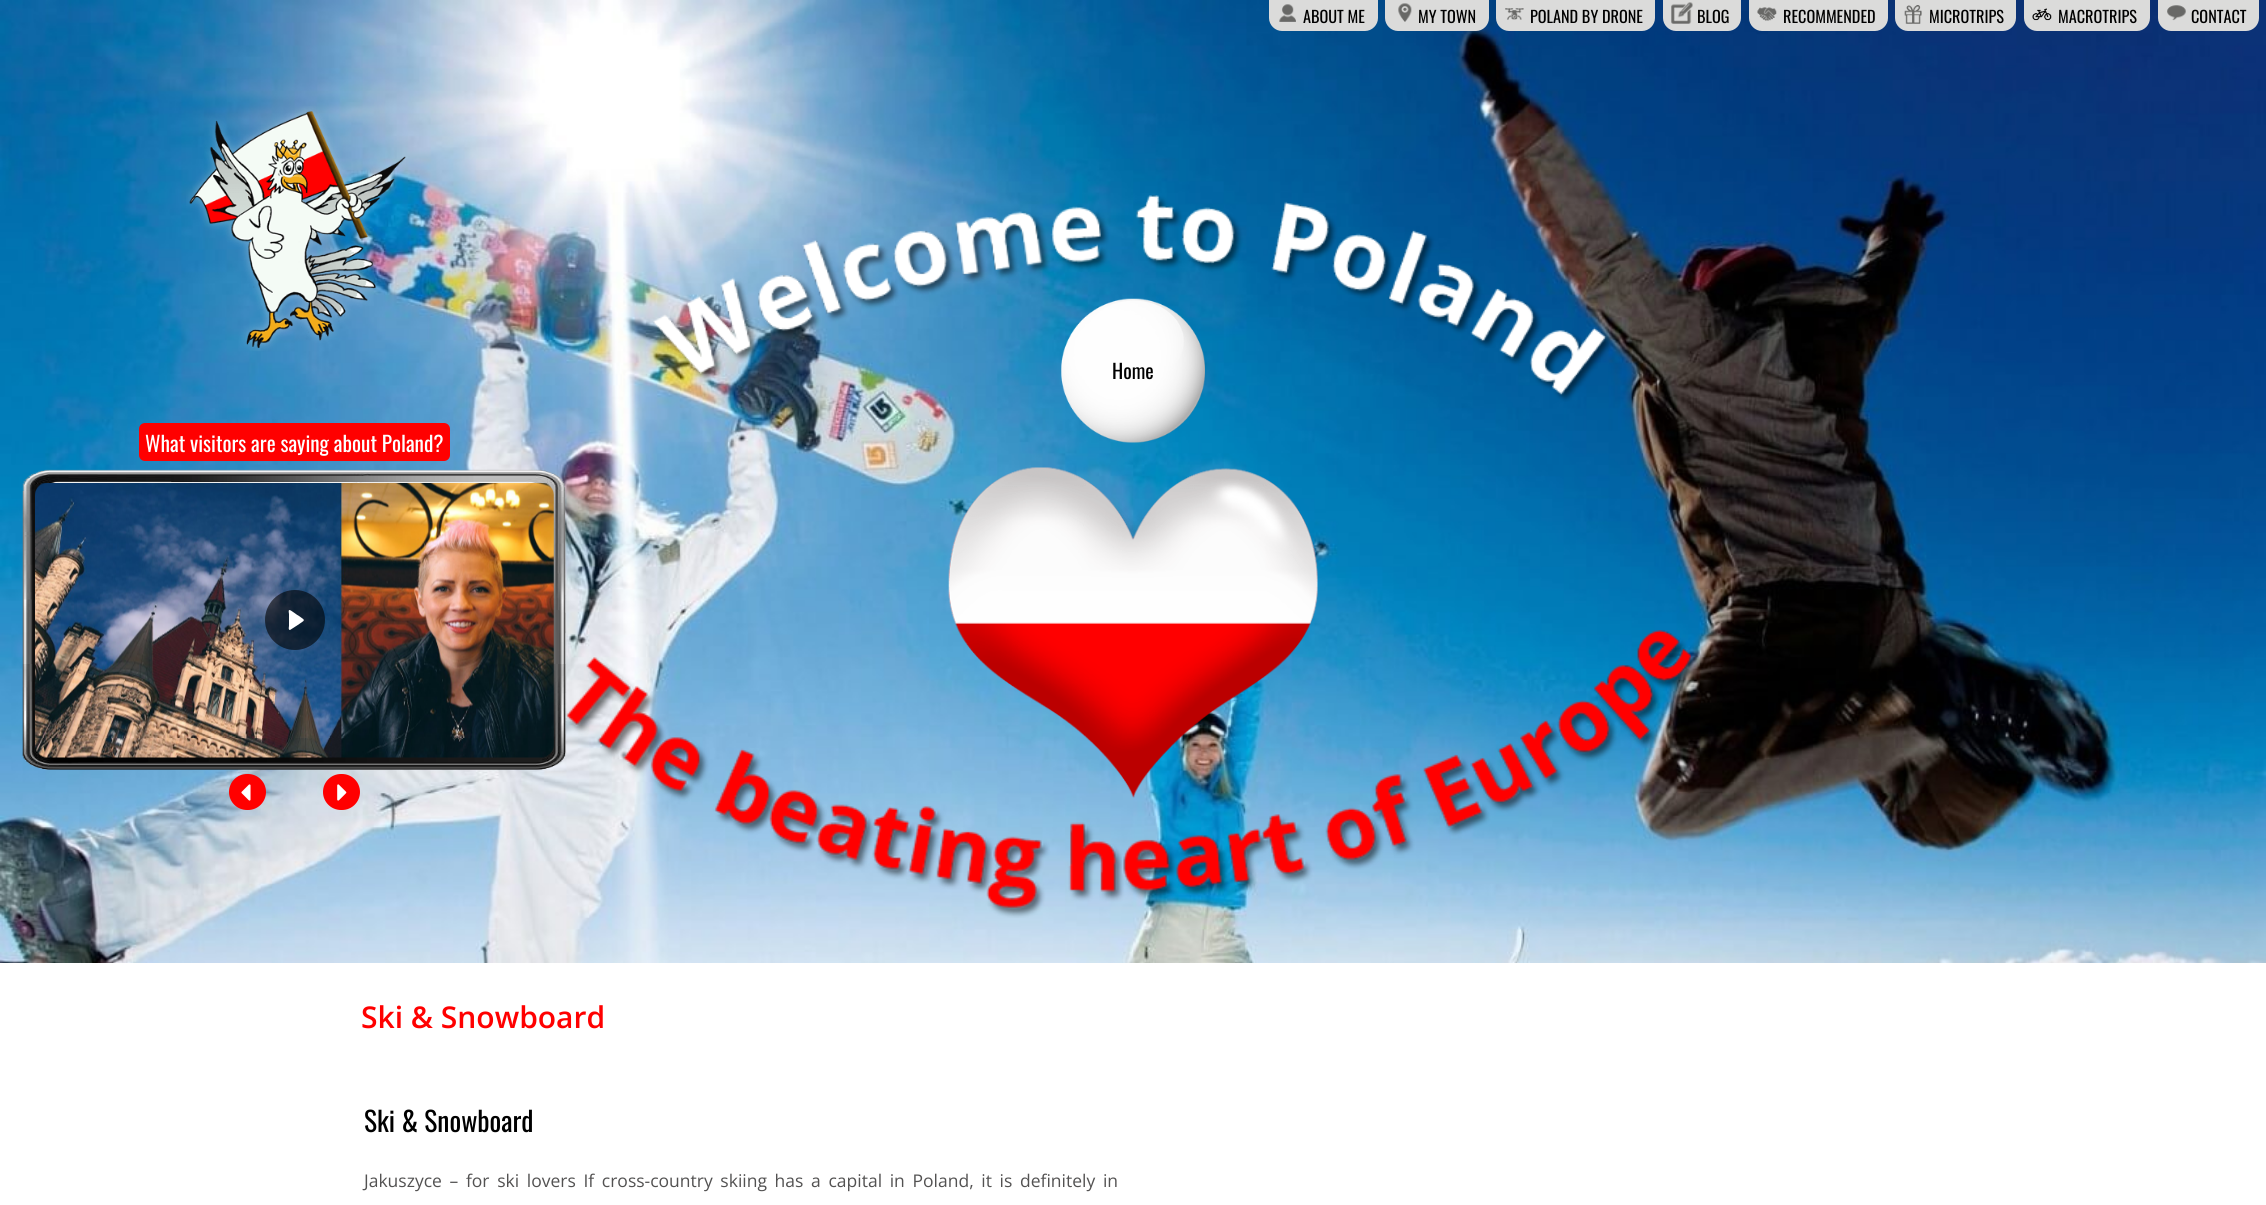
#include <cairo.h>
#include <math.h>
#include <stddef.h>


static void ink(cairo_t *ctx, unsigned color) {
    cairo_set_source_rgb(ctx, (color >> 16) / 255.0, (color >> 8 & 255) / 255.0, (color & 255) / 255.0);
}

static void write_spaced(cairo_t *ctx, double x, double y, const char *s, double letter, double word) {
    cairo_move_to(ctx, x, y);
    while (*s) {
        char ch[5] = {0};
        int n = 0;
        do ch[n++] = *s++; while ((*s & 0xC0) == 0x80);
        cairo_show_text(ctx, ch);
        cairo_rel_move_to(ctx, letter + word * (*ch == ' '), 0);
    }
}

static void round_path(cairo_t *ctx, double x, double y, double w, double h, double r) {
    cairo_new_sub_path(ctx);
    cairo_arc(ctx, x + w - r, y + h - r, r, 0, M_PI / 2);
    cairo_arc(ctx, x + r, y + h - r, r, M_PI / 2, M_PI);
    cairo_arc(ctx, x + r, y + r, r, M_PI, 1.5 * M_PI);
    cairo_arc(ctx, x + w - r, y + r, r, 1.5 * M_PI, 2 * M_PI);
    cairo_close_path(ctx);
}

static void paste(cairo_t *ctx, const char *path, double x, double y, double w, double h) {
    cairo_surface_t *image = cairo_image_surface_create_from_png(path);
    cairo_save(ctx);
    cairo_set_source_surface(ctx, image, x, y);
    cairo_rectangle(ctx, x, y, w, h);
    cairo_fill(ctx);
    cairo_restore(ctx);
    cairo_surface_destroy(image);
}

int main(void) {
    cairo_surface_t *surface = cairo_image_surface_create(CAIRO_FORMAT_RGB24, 2266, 1205);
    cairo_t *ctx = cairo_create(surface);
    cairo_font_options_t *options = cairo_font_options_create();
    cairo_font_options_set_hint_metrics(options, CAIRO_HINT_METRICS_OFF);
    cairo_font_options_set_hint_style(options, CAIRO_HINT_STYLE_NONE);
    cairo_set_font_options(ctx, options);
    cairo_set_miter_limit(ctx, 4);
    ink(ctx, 0xFFFFFF);
    cairo_paint(ctx);
    paste(ctx, "media/1.png", 0, 0, 2266, 963);
    ink(ctx, 0xDBDBDA);
    cairo_new_path(ctx);
    cairo_move_to(ctx, 1269, 0);
    cairo_line_to(ctx, 1378, 0);
    cairo_line_to(ctx, 1378, 18);
    cairo_curve_to(ctx, 1378, 25, 1372, 31, 1365, 31);
    cairo_line_to(ctx, 1282, 31);
    cairo_curve_to(ctx, 1275, 31, 1269, 25, 1269, 18);
    cairo_close_path(ctx);
    cairo_fill(ctx);
    paste(ctx, "media/2.png", 1279, 4, 17, 18);
    cairo_select_font_face(ctx, "Oswald", CAIRO_FONT_SLANT_NORMAL, CAIRO_FONT_WEIGHT_NORMAL);
    cairo_set_font_size(ctx, 16.25);
    ink(ctx, 0x000000);
    cairo_move_to(ctx, 1303, 23);
    cairo_show_text(ctx, "ABOUT ME");
    ink(ctx, 0xDBDBDA);
    cairo_new_path(ctx);
    cairo_move_to(ctx, 1385, 0);
    cairo_line_to(ctx, 1489, 0);
    cairo_line_to(ctx, 1489, 18);
    cairo_curve_to(ctx, 1489, 25, 1483, 31, 1476, 31);
    cairo_line_to(ctx, 1398, 31);
    cairo_curve_to(ctx, 1391, 31, 1385, 25, 1385, 18);
    cairo_close_path(ctx);
    cairo_fill(ctx);
    paste(ctx, "media/3.png", 1398, 3, 14, 19);
    ink(ctx, 0x000000);
    cairo_move_to(ctx, 1418, 23);
    cairo_show_text(ctx, "MY TOWN");
    ink(ctx, 0xDBDBDA);
    cairo_new_path(ctx);
    cairo_move_to(ctx, 1496, 0);
    cairo_line_to(ctx, 1655, 0);
    cairo_line_to(ctx, 1655, 18);
    cairo_curve_to(ctx, 1655, 25, 1649, 31, 1642, 31);
    cairo_line_to(ctx, 1509, 31);
    cairo_curve_to(ctx, 1502, 31, 1496, 25, 1496, 18);
    cairo_close_path(ctx);
    cairo_fill(ctx);
    paste(ctx, "media/4.png", 1505, 8, 19, 12);
    ink(ctx, 0x000000);
    cairo_move_to(ctx, 1530, 23);
    cairo_show_text(ctx, "POLAND BY DRONE");
    ink(ctx, 0xDBDBDA);
    cairo_new_path(ctx);
    cairo_move_to(ctx, 1663, 0);
    cairo_line_to(ctx, 1741, 0);
    cairo_line_to(ctx, 1741, 18);
    cairo_curve_to(ctx, 1741, 25, 1735, 31, 1728, 31);
    cairo_line_to(ctx, 1676, 31);
    cairo_curve_to(ctx, 1669, 31, 1663, 25, 1663, 18);
    cairo_close_path(ctx);
    cairo_fill(ctx);
    paste(ctx, "media/5.png", 1671, 2, 22, 22);
    ink(ctx, 0x000000);
    cairo_move_to(ctx, 1697, 23);
    cairo_show_text(ctx, "BLOG");
    ink(ctx, 0xDBDBDA);
    cairo_new_path(ctx);
    cairo_move_to(ctx, 1749, 0);
    cairo_line_to(ctx, 1888, 0);
    cairo_line_to(ctx, 1888, 18);
    cairo_curve_to(ctx, 1888, 25, 1882, 31, 1875, 31);
    cairo_line_to(ctx, 1762, 31);
    cairo_curve_to(ctx, 1755, 31, 1749, 25, 1749, 18);
    cairo_close_path(ctx);
    cairo_fill(ctx);
    paste(ctx, "media/6.png", 1757, 7, 20, 14);
    ink(ctx, 0x000000);
    cairo_move_to(ctx, 1783, 23);
    cairo_show_text(ctx, "RECOMMENDED");
    ink(ctx, 0xDBDBDA);
    cairo_new_path(ctx);
    cairo_move_to(ctx, 1895, 0);
    cairo_line_to(ctx, 2016, 0);
    cairo_line_to(ctx, 2016, 18);
    cairo_curve_to(ctx, 2016, 25, 2010, 31, 2003, 31);
    cairo_line_to(ctx, 1908, 31);
    cairo_curve_to(ctx, 1901, 31, 1895, 25, 1895, 18);
    cairo_close_path(ctx);
    cairo_fill(ctx);
    paste(ctx, "media/7.png", 1904, 5, 18, 19);
    ink(ctx, 0x000000);
    cairo_move_to(ctx, 1929, 23);
    cairo_show_text(ctx, "MICROTRIPS");
    ink(ctx, 0xDBDBDA);
    cairo_new_path(ctx);
    cairo_move_to(ctx, 2024, 0);
    cairo_line_to(ctx, 2150, 0);
    cairo_line_to(ctx, 2150, 18);
    cairo_curve_to(ctx, 2150, 25, 2144, 31, 2137, 31);
    cairo_line_to(ctx, 2037, 31);
    cairo_curve_to(ctx, 2030, 31, 2024, 25, 2024, 18);
    cairo_close_path(ctx);
    cairo_fill(ctx);
    paste(ctx, "media/8.png", 2032, 8, 20, 13);
    ink(ctx, 0x000000);
    cairo_move_to(ctx, 2058, 23);
    cairo_show_text(ctx, "MACROTRIPS");
    ink(ctx, 0xDBDBDA);
    cairo_new_path(ctx);
    cairo_move_to(ctx, 2158, 0);
    cairo_line_to(ctx, 2259, 0);
    cairo_line_to(ctx, 2259, 18);
    cairo_curve_to(ctx, 2259, 25, 2253, 31, 2246, 31);
    cairo_line_to(ctx, 2171, 31);
    cairo_curve_to(ctx, 2164, 31, 2158, 25, 2158, 18);
    cairo_close_path(ctx);
    cairo_fill(ctx);
    paste(ctx, "media/9.png", 2167, 5, 19, 16);
    ink(ctx, 0x000000);
    cairo_move_to(ctx, 2191, 23);
    cairo_show_text(ctx, "CONTACT");
    paste(ctx, "media/10.png", 653, 195, 960, 207);
    paste(ctx, "media/11.png", 566, 630, 1133, 288);
    paste(ctx, "media/12.png", 1061, 298, 144, 145);
    cairo_set_font_size(ctx, 20);
    cairo_move_to(ctx, 1112, 379);
    cairo_show_text(ctx, "Home");
    paste(ctx, "media/13.png", 948, 467, 370, 331);
    paste(ctx, "media/14.png", 186, 106, 220, 245);
    ink(ctx, 0xFF0000);
    round_path(ctx, 139, 423, 311, 38, 6);
    cairo_fill(ctx);
    cairo_set_font_size(ctx, 21.25);
    ink(ctx, 0xFFFFFF);
    cairo_move_to(ctx, 145, 452);
    cairo_show_text(ctx, "What visitors are saying about Poland?");
    paste(ctx, "media/15.png", 22, 469, 545, 301);
    paste(ctx, "media/16.png", 35, 483, 519, 275);
    cairo_set_source_rgba(ctx, 0, 0, 0, 0.6);
    cairo_arc(ctx, 295, 620, 30, 0, 2 * M_PI);
    cairo_fill(ctx);
    ink(ctx, 0xFFFFFF);
    cairo_set_fill_rule(ctx, CAIRO_FILL_RULE_EVEN_ODD);
    cairo_new_path(ctx);
    cairo_move_to(ctx, 290, 630);
    cairo_curve_to(ctx, 288, 630, 289, 626.5, 289, 626);
    cairo_line_to(ctx, 289, 614);
    cairo_curve_to(ctx, 289, 613.5, 288, 610, 289.5, 610);
    cairo_curve_to(ctx, 291, 610, 297.5, 615.5, 299, 616);
    cairo_curve_to(ctx, 306, 621, 305.5, 619.5, 297, 625.5);
    cairo_close_path(ctx);
    cairo_fill(ctx);
    ink(ctx, 0xFF0000);
    round_path(ctx, 229, 774, 37, 36, 18);
    cairo_fill(ctx);
    paste(ctx, "media/17.png", 241, 784, 10, 17);
    round_path(ctx, 323, 774, 37, 36, 18);
    cairo_fill(ctx);
    paste(ctx, "media/18.png", 337, 784, 10, 17);
    cairo_select_font_face(ctx, "Open Sans SemiBold", CAIRO_FONT_SLANT_NORMAL, CAIRO_FONT_WEIGHT_NORMAL);
    cairo_set_font_size(ctx, 30);
    cairo_move_to(ctx, 361, 1028);
    cairo_show_text(ctx, "Ski & Snowboard");
    cairo_select_font_face(ctx, "Oswald", CAIRO_FONT_SLANT_NORMAL, CAIRO_FONT_WEIGHT_NORMAL);
    cairo_set_font_size(ctx, 27.5);
    ink(ctx, 0x000000);
    cairo_move_to(ctx, 364, 1132);
    cairo_show_text(ctx, "Ski & Snowboard");
    cairo_select_font_face(ctx, "Open Sans", CAIRO_FONT_SLANT_NORMAL, CAIRO_FONT_WEIGHT_NORMAL);
    cairo_set_font_size(ctx, 17.5);
    ink(ctx, 0x535252);
    write_spaced(ctx, 364, 1187, "Jakuszyce – for ski lovers If cross-country skiing has a capital in Poland, it is definitely in", 0, 3.1);
    cairo_surface_write_to_png(surface, "image.png");
    cairo_font_options_destroy(options);
    cairo_destroy(ctx);
    cairo_surface_destroy(surface);
    return 0;
}
